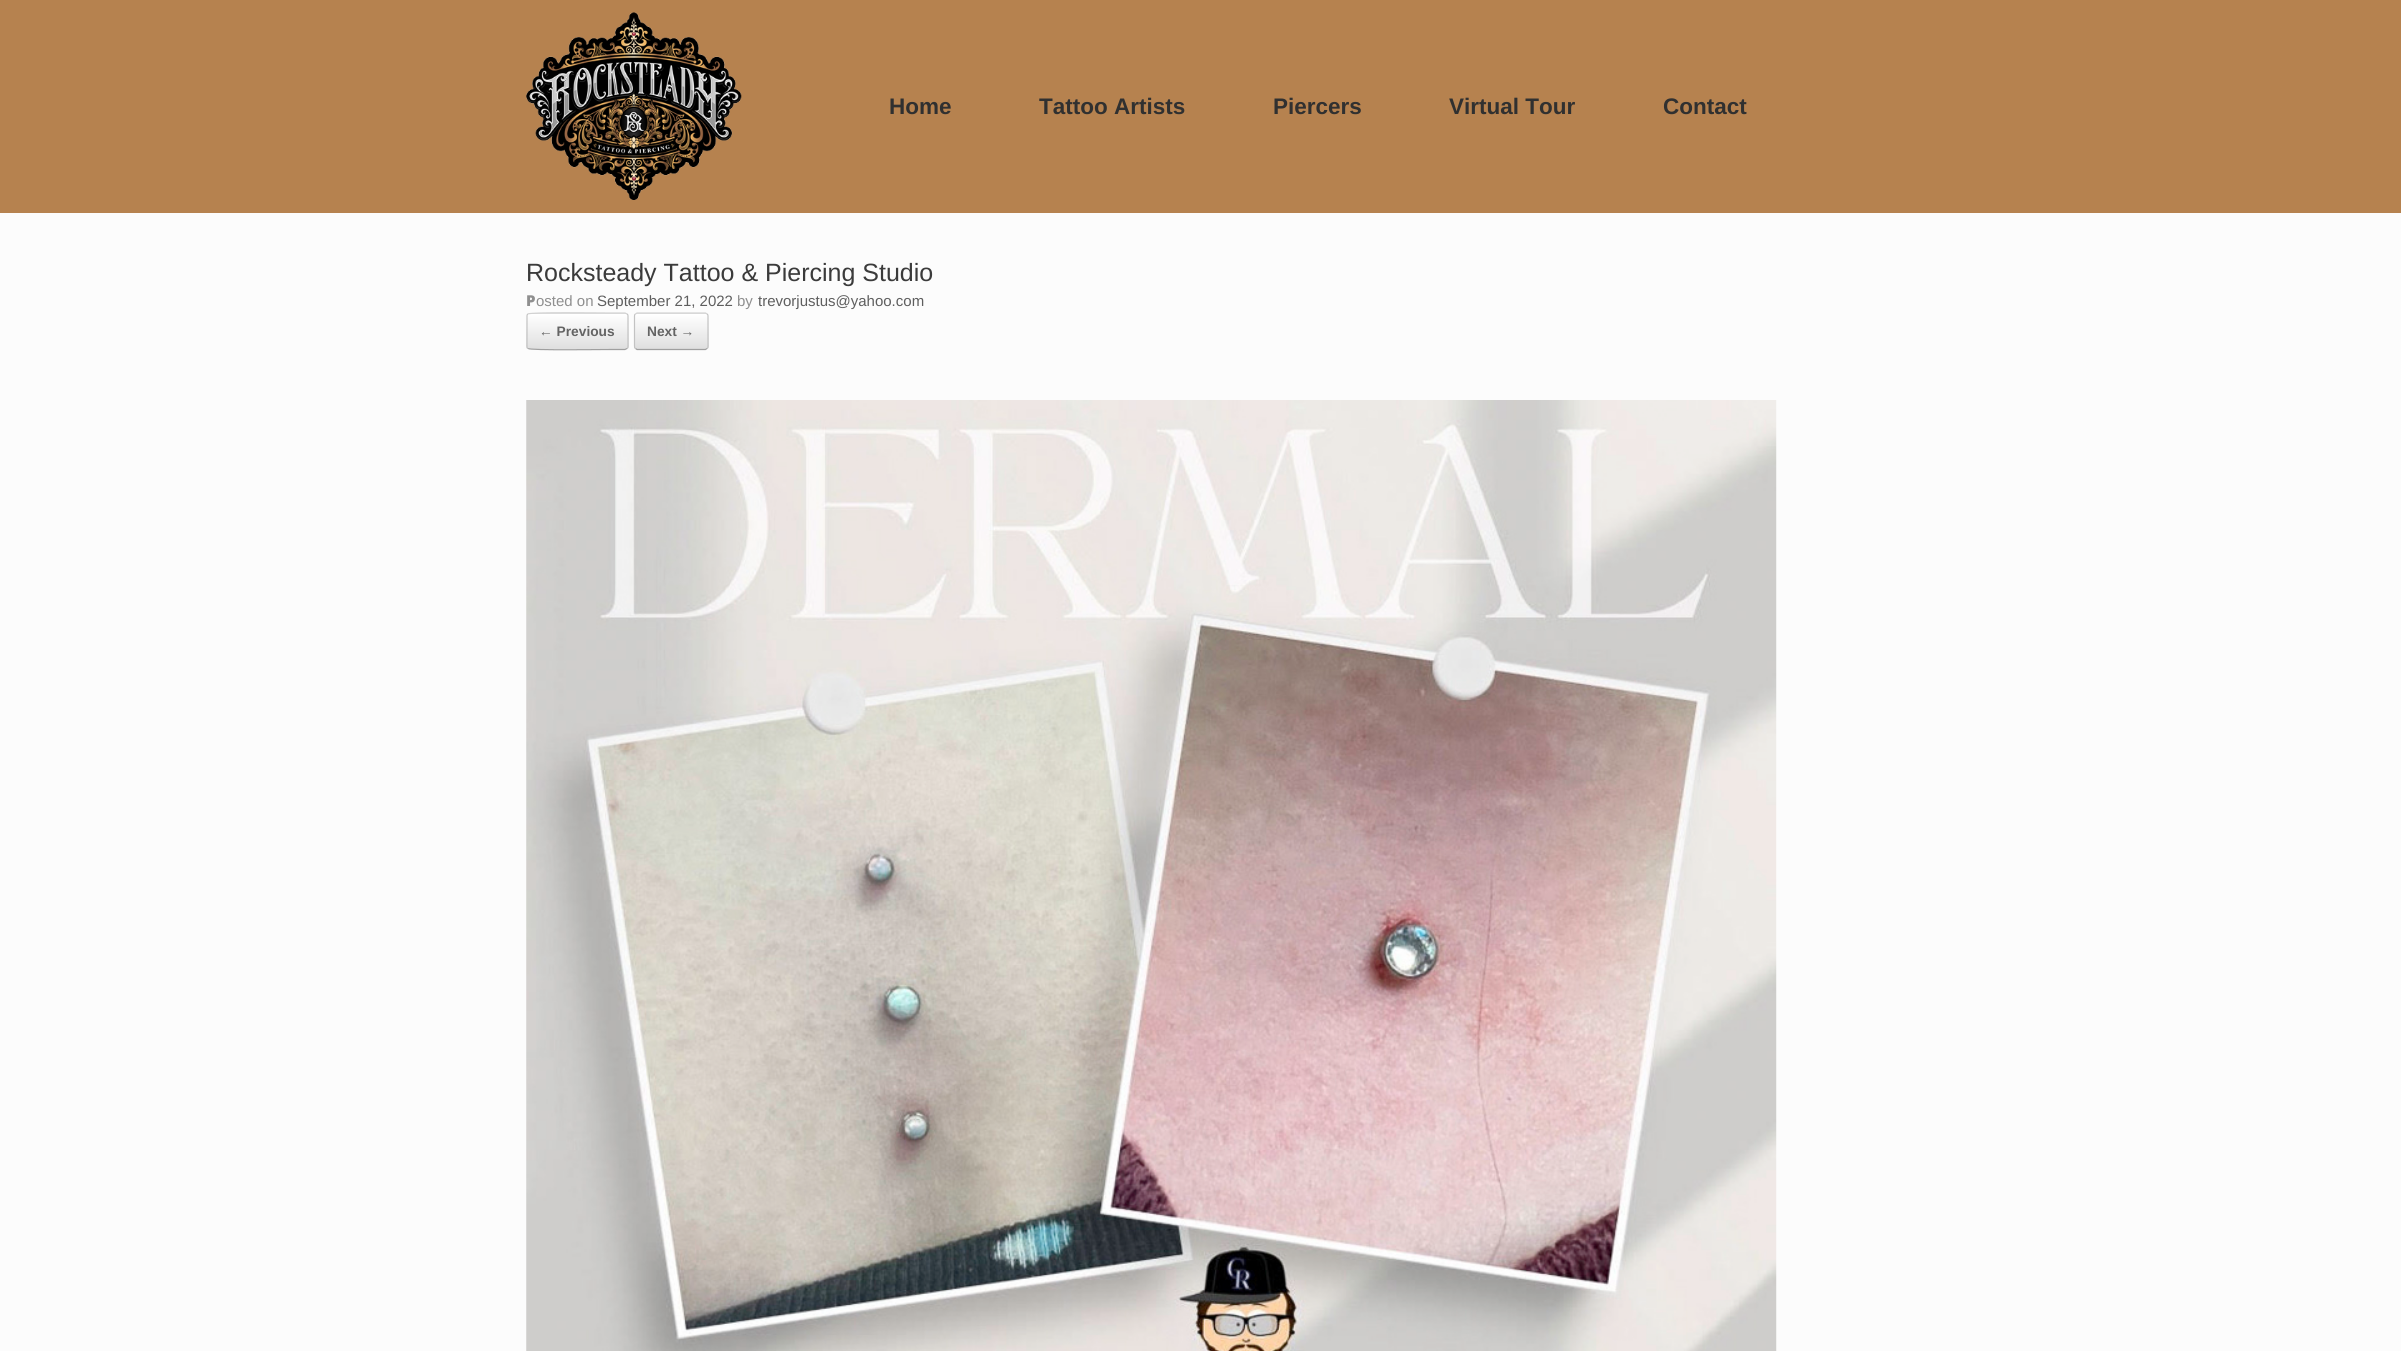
#include <cairo.h>
#include <math.h>
#include <stddef.h>

typedef struct { double x, y; const char *s; } line_t;

static void ink(cairo_t *ctx, unsigned color) {
    cairo_set_source_rgb(ctx, (color >> 16) / 255.0, (color >> 8 & 255) / 255.0, (color & 255) / 255.0);
}

static void round_path(cairo_t *ctx, double x, double y, double w, double h, double r) {
    cairo_new_sub_path(ctx);
    cairo_arc(ctx, x + w - r, y + h - r, r, 0, M_PI / 2);
    cairo_arc(ctx, x + r, y + h - r, r, M_PI / 2, M_PI);
    cairo_arc(ctx, x + r, y + r, r, M_PI, 1.5 * M_PI);
    cairo_arc(ctx, x + w - r, y + r, r, 1.5 * M_PI, 2 * M_PI);
    cairo_close_path(ctx);
}

static void paste(cairo_t *ctx, const char *path, double x, double y, double w, double h) {
    cairo_surface_t *image = cairo_image_surface_create_from_png(path);
    cairo_save(ctx);
    cairo_set_source_surface(ctx, image, x, y);
    cairo_rectangle(ctx, x, y, w, h);
    cairo_fill(ctx);
    cairo_restore(ctx);
    cairo_surface_destroy(image);
}

int main(void) {
    cairo_surface_t *surface = cairo_image_surface_create(CAIRO_FORMAT_RGB24, 2401, 1351);
    cairo_t *ctx = cairo_create(surface);
    cairo_font_options_t *options = cairo_font_options_create();
    cairo_font_options_set_hint_metrics(options, CAIRO_HINT_METRICS_OFF);
    cairo_font_options_set_hint_style(options, CAIRO_HINT_STYLE_NONE);
    cairo_set_font_options(ctx, options);
    cairo_set_miter_limit(ctx, 4);
    cairo_pattern_t *gradient;
    ink(ctx, 0xFCFCFC);
    cairo_paint(ctx);
    ink(ctx, 0xB6824F);
    cairo_rectangle(ctx, 0, 0, 2401, 213);
    cairo_fill(ctx);
    paste(ctx, "media/1.png", 526, 12, 216, 188);
    cairo_select_font_face(ctx, "Liberation Sans", CAIRO_FONT_SLANT_NORMAL, CAIRO_FONT_WEIGHT_BOLD);
    cairo_set_font_size(ctx, 22.5);
    ink(ctx, 0x303030);
    {
        static const line_t items[] = {
            {889, 114, "Home"},
            {1039, 114, "Tattoo Artists"},
            {1273, 114, "Piercers"},
            {1449, 114, "Virtual Tour"},
            {1663, 114, "Contact"},
        };
        for (size_t i = 0; i < sizeof items / sizeof *items; i++) {
            cairo_move_to(ctx, items[i].x, items[i].y);
            cairo_show_text(ctx, items[i].s);
        }
    }
    cairo_select_font_face(ctx, "Liberation Sans", CAIRO_FONT_SLANT_NORMAL, CAIRO_FONT_WEIGHT_NORMAL);
    cairo_set_font_size(ctx, 25);
    ink(ctx, 0x3B3B3B);
    cairo_move_to(ctx, 526, 281);
    cairo_show_text(ctx, "Rocksteady Tattoo & Piercing Studio");
    cairo_select_font_face(ctx, "Noto Sans Black", CAIRO_FONT_SLANT_NORMAL, CAIRO_FONT_WEIGHT_NORMAL);
    cairo_set_font_size(ctx, 15);
    ink(ctx, 0x8F8F8F);
    cairo_move_to(ctx, 526, 306);
    cairo_show_text(ctx, "P");
    cairo_select_font_face(ctx, "Liberation Sans", CAIRO_FONT_SLANT_NORMAL, CAIRO_FONT_WEIGHT_NORMAL);
    cairo_move_to(ctx, 536, 306);
    cairo_show_text(ctx, "osted on");
    ink(ctx, 0x5E5E5E);
    cairo_move_to(ctx, 597, 306);
    cairo_show_text(ctx, "September 21, 2022");
    ink(ctx, 0x8F8F8F);
    cairo_move_to(ctx, 737, 306);
    cairo_show_text(ctx, "by");
    ink(ctx, 0x5E5E5E);
    cairo_move_to(ctx, 758, 306);
    cairo_show_text(ctx, "trevorjustus@yahoo.com");
    cairo_save(ctx);
    round_path(ctx, 526, 313, 103, 37, 4);
    cairo_clip(ctx);
    gradient = cairo_pattern_create_linear(528, 314, 528, 279);
    cairo_pattern_add_color_stop_rgba(gradient, 0, 0.875, 0.875, 0.875, 1);
    cairo_pattern_add_color_stop_rgba(gradient, 1, 1, 1, 1, 1);
    cairo_set_source(ctx, gradient);
    cairo_pattern_destroy(gradient);
    cairo_rectangle(ctx, 526, 313, 103, 1);
    cairo_fill(ctx);
    gradient = cairo_pattern_create_linear(528, 349, 528, 314);
    cairo_pattern_add_color_stop_rgba(gradient, 0, 0.875, 0.875, 0.875, 1);
    cairo_pattern_add_color_stop_rgba(gradient, 1, 1, 1, 1, 1);
    cairo_set_source(ctx, gradient);
    cairo_pattern_destroy(gradient);
    cairo_rectangle(ctx, 526, 314, 103, 35);
    cairo_fill(ctx);
    gradient = cairo_pattern_create_linear(528, 384, 528, 349);
    cairo_pattern_add_color_stop_rgba(gradient, 0, 0.875, 0.875, 0.875, 1);
    cairo_pattern_add_color_stop_rgba(gradient, 1, 1, 1, 1, 1);
    cairo_set_source(ctx, gradient);
    cairo_pattern_destroy(gradient);
    cairo_rectangle(ctx, 526, 349, 103, 1);
    cairo_fill(ctx);
    cairo_restore(ctx);
    cairo_new_path(ctx);
    cairo_move_to(ctx, 528, 314);
    cairo_curve_to(ctx, 530, 312, 600.5, 313, 609, 313);
    cairo_line_to(ctx, 625, 313);
    cairo_line_to(ctx, 627, 314);
    ink(ctx, 0xD2D2D2);
    cairo_set_line_width(ctx, 1.2);
    cairo_stroke(ctx);
    cairo_new_path(ctx);
    cairo_move_to(ctx, 627, 314);
    cairo_curve_to(ctx, 628, 314.5, 628, 315.5, 628, 316);
    cairo_line_to(ctx, 628, 346);
    cairo_curve_to(ctx, 628, 347, 628, 348, 627, 348.5);
    ink(ctx, 0xC3C3C3);
    cairo_stroke(ctx);
    cairo_new_path(ctx);
    cairo_move_to(ctx, 627, 348.5);
    cairo_line_to(ctx, 625, 349.5);
    cairo_line_to(ctx, 609, 349.5);
    cairo_curve_to(ctx, 600.5, 349.5, 530, 350.5, 528, 348.5);
    ink(ctx, 0x9F9F9F);
    cairo_stroke(ctx);
    cairo_new_path(ctx);
    cairo_move_to(ctx, 528, 348.5);
    cairo_curve_to(ctx, 527, 348, 527, 347, 527, 346);
    cairo_line_to(ctx, 527, 316);
    cairo_curve_to(ctx, 527, 315.5, 527, 314.5, 528, 314);
    ink(ctx, 0xC3C3C3);
    cairo_stroke(ctx);
    cairo_select_font_face(ctx, "Liberation Sans", CAIRO_FONT_SLANT_NORMAL, CAIRO_FONT_WEIGHT_BOLD);
    cairo_set_font_size(ctx, 13.75);
    ink(ctx, 0x646464);
    cairo_move_to(ctx, 539, 336);
    cairo_show_text(ctx, "← Previous");
    cairo_save(ctx);
    round_path(ctx, 634, 313, 75, 37, 4);
    cairo_clip(ctx);
    gradient = cairo_pattern_create_linear(635, 314, 635, 279);
    cairo_pattern_add_color_stop_rgba(gradient, 0, 0.875, 0.875, 0.875, 1);
    cairo_pattern_add_color_stop_rgba(gradient, 1, 1, 1, 1, 1);
    cairo_set_source(ctx, gradient);
    cairo_pattern_destroy(gradient);
    cairo_rectangle(ctx, 634, 313, 75, 1);
    cairo_fill(ctx);
    gradient = cairo_pattern_create_linear(635, 349, 635, 314);
    cairo_pattern_add_color_stop_rgba(gradient, 0, 0.875, 0.875, 0.875, 1);
    cairo_pattern_add_color_stop_rgba(gradient, 1, 1, 1, 1, 1);
    cairo_set_source(ctx, gradient);
    cairo_pattern_destroy(gradient);
    cairo_rectangle(ctx, 634, 314, 75, 35);
    cairo_fill(ctx);
    cairo_restore(ctx);
    cairo_new_path(ctx);
    cairo_move_to(ctx, 635.5, 314);
    cairo_line_to(ctx, 637, 313);
    cairo_line_to(ctx, 705.5, 313);
    cairo_line_to(ctx, 707, 314);
    ink(ctx, 0xD2D2D2);
    cairo_stroke(ctx);
    cairo_new_path(ctx);
    cairo_move_to(ctx, 707, 314);
    cairo_curve_to(ctx, 708, 314.5, 708, 315.5, 708, 316);
    cairo_line_to(ctx, 708, 346);
    cairo_curve_to(ctx, 708, 347, 708, 348, 707, 348.5);
    ink(ctx, 0xC3C3C3);
    cairo_stroke(ctx);
    cairo_new_path(ctx);
    cairo_move_to(ctx, 707, 348.5);
    cairo_line_to(ctx, 705.5, 349.5);
    cairo_line_to(ctx, 637, 349.5);
    cairo_line_to(ctx, 635.5, 348.5);
    ink(ctx, 0x9F9F9F);
    cairo_stroke(ctx);
    cairo_new_path(ctx);
    cairo_move_to(ctx, 635.5, 348.5);
    cairo_curve_to(ctx, 634.5, 348, 634.5, 347, 634.5, 346);
    cairo_line_to(ctx, 634.5, 316);
    cairo_curve_to(ctx, 634.5, 315.5, 634.5, 314.5, 635.5, 314);
    ink(ctx, 0xC3C3C3);
    cairo_stroke(ctx);
    ink(ctx, 0x646464);
    cairo_move_to(ctx, 647, 336);
    cairo_show_text(ctx, "Next →");
    paste(ctx, "media/2.png", 526, 400, 1251, 951);
    cairo_surface_write_to_png(surface, "image.png");
    cairo_font_options_destroy(options);
    cairo_destroy(ctx);
    cairo_surface_destroy(surface);
    return 0;
}
